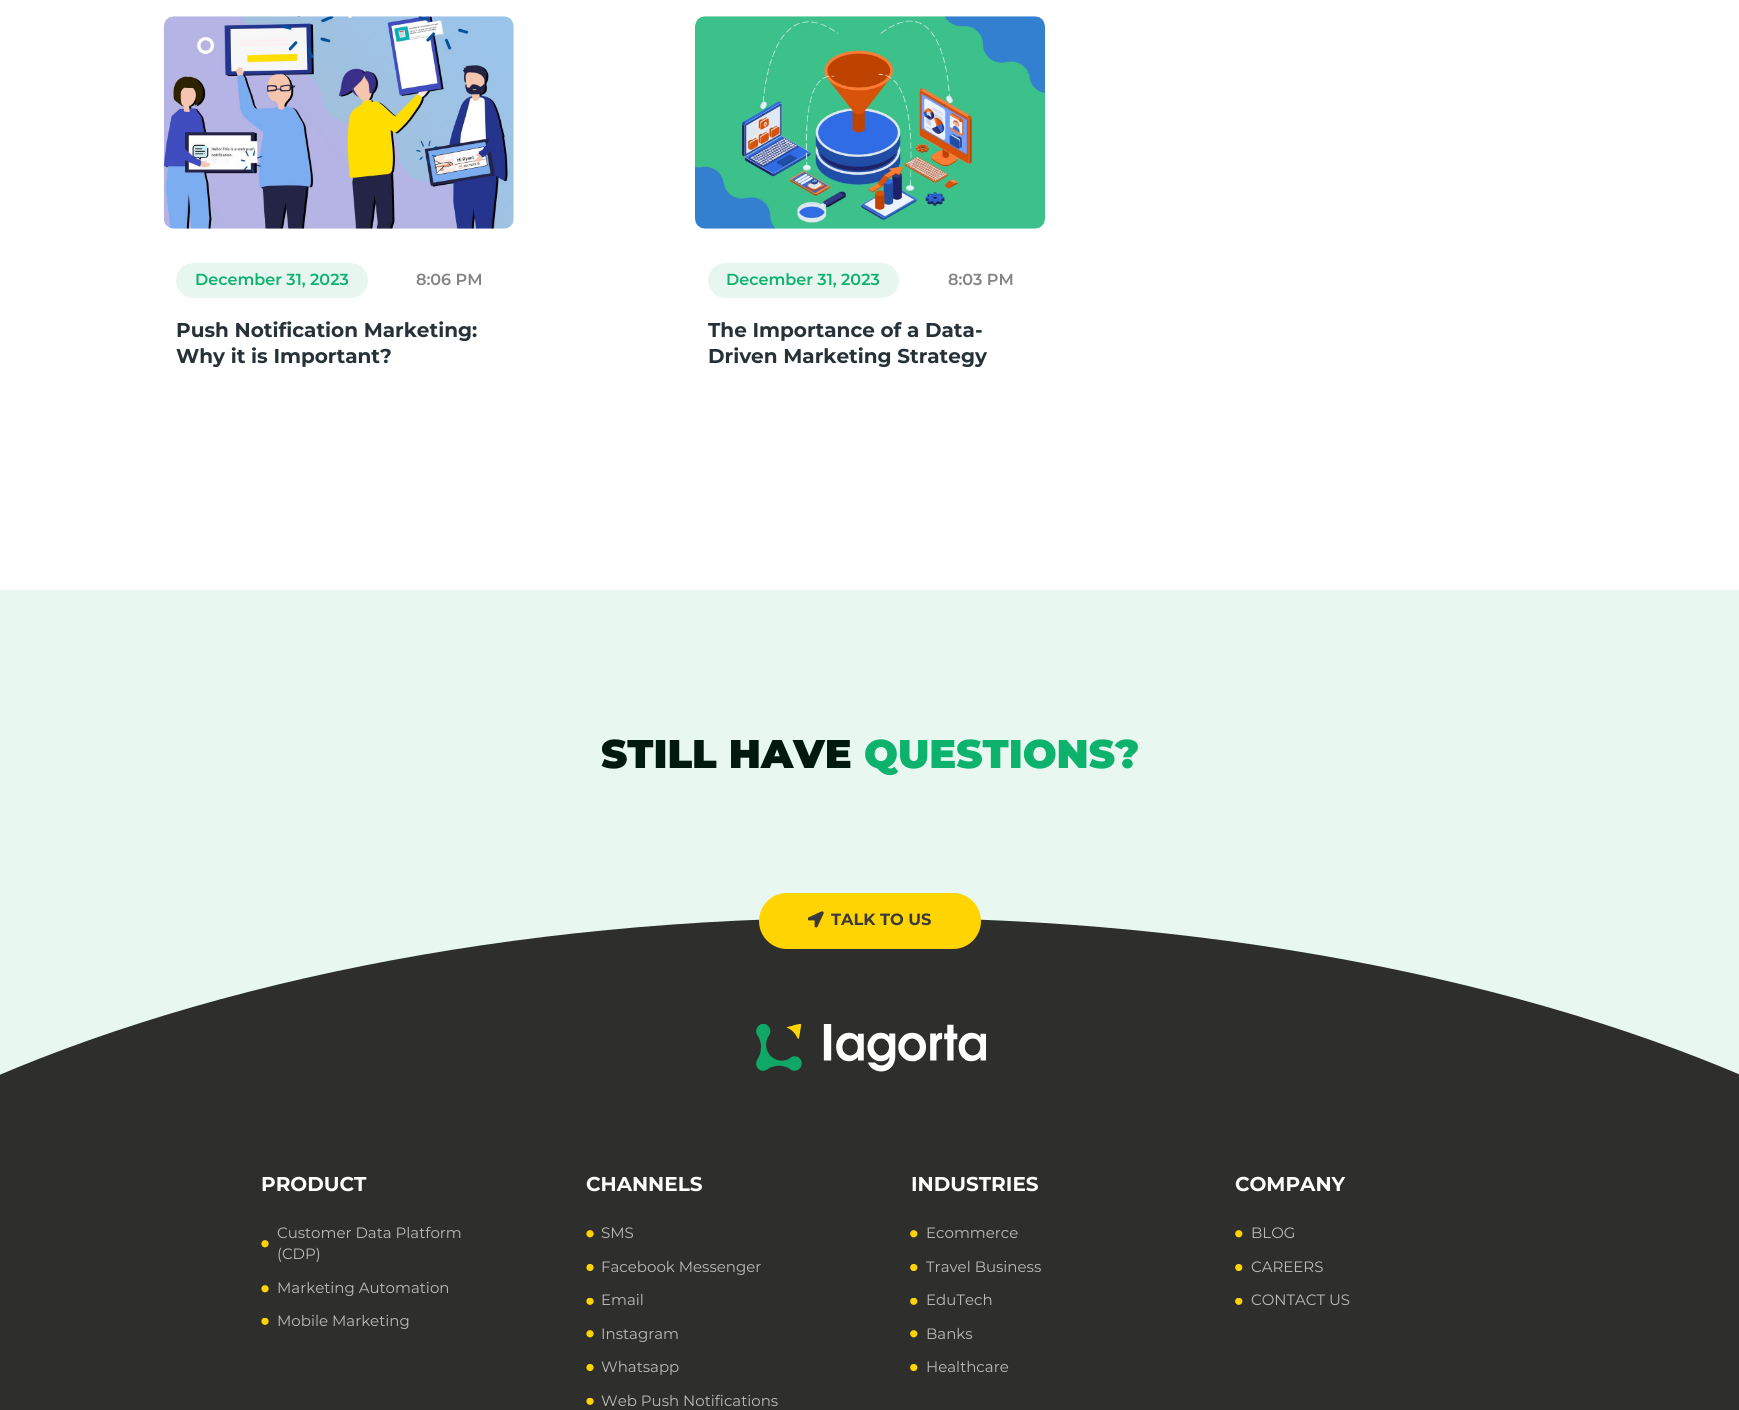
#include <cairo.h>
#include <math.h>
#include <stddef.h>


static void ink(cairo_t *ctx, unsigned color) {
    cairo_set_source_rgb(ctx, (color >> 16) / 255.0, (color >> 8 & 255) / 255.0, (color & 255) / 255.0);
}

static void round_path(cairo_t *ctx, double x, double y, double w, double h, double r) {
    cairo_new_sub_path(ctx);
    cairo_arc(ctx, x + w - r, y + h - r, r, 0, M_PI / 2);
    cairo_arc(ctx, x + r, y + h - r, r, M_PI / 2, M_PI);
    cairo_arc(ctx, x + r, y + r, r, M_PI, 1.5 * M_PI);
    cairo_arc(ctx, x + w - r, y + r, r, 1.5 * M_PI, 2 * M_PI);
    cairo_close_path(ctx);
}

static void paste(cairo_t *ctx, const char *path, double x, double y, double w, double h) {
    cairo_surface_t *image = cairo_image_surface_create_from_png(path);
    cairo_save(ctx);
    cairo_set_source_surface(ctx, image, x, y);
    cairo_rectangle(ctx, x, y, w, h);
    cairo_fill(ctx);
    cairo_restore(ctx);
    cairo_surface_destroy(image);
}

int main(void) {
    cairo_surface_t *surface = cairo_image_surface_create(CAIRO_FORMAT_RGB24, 1739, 1410);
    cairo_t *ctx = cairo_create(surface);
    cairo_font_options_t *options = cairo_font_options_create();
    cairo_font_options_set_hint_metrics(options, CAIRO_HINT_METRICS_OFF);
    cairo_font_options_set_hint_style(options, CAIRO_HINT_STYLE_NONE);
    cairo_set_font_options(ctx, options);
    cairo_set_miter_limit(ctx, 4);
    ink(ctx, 0xFFFFFF);
    cairo_paint(ctx);
    paste(ctx, "media/1.png", 163, 16, 351, 213);
    ink(ctx, 0xE7F7F0);
    round_path(ctx, 176, 263, 192, 35, 17.5);
    cairo_fill(ctx);
    cairo_select_font_face(ctx, "Montserrat SemiBold", CAIRO_FONT_SLANT_NORMAL, CAIRO_FONT_WEIGHT_NORMAL);
    cairo_set_font_size(ctx, 16);
    ink(ctx, 0x0DB36D);
    cairo_move_to(ctx, 195, 285);
    cairo_show_text(ctx, "December 31, 2023");
    ink(ctx, 0x848484);
    cairo_move_to(ctx, 416, 285);
    cairo_show_text(ctx, "8:06 PM");
    cairo_select_font_face(ctx, "Montserrat", CAIRO_FONT_SLANT_NORMAL, CAIRO_FONT_WEIGHT_BOLD);
    cairo_set_font_size(ctx, 20);
    ink(ctx, 0x263238);
    cairo_move_to(ctx, 176, 337);
    cairo_show_text(ctx, "Push Notification Marketing:");
    cairo_move_to(ctx, 176, 363);
    cairo_show_text(ctx, "Why it is Important?");
    paste(ctx, "media/2.png", 695, 16, 350, 213);
    ink(ctx, 0xE7F7F0);
    round_path(ctx, 708, 263, 191, 35, 17.5);
    cairo_fill(ctx);
    cairo_select_font_face(ctx, "Montserrat SemiBold", CAIRO_FONT_SLANT_NORMAL, CAIRO_FONT_WEIGHT_NORMAL);
    cairo_set_font_size(ctx, 16);
    ink(ctx, 0x0DB36D);
    cairo_move_to(ctx, 726, 285);
    cairo_show_text(ctx, "December 31, 2023");
    ink(ctx, 0x848484);
    cairo_move_to(ctx, 948, 285);
    cairo_show_text(ctx, "8:03 PM");
    cairo_select_font_face(ctx, "Montserrat", CAIRO_FONT_SLANT_NORMAL, CAIRO_FONT_WEIGHT_BOLD);
    cairo_set_font_size(ctx, 20);
    ink(ctx, 0x263238);
    cairo_move_to(ctx, 708, 337);
    cairo_show_text(ctx, "The Importance of a Data-");
    cairo_move_to(ctx, 708, 363);
    cairo_show_text(ctx, "Driven Marketing Strategy");
    ink(ctx, 0xE8F8F1);
    cairo_rectangle(ctx, 0, 590, 1739, 485);
    cairo_fill(ctx);
    cairo_select_font_face(ctx, "Montserrat Black", CAIRO_FONT_SLANT_NORMAL, CAIRO_FONT_WEIGHT_NORMAL);
    cairo_set_font_size(ctx, 40);
    ink(ctx, 0x011A10);
    cairo_move_to(ctx, 601, 768);
    cairo_show_text(ctx, "STILL HAVE");
    ink(ctx, 0x0DB36D);
    cairo_move_to(ctx, 864, 768);
    cairo_show_text(ctx, "QUESTIONS?");
    ink(ctx, 0x2E2F2D);
    cairo_new_path(ctx);
    cairo_move_to(ctx, 870, 917.5);
    cairo_curve_to(ctx, 1590.5, 917.5, 2174.5, 1193.5, 2174.5, 1534.5);
    cairo_curve_to(ctx, 2174.5, 1875.5, 1590.5, 2151.5, 870, 2151.5);
    cairo_curve_to(ctx, 149.5, 2151.5, -434.5, 1875.5, -434.5, 1534.5);
    cairo_curve_to(ctx, -434.5, 1193.5, 149.5, 917.5, 870, 917.5);
    cairo_close_path(ctx);
    cairo_fill(ctx);
    ink(ctx, 0xFFD400);
    round_path(ctx, 759, 893, 222, 56, 28);
    cairo_fill(ctx);
    paste(ctx, "media/3.png", 808, 911, 16, 17);
    cairo_select_font_face(ctx, "Montserrat", CAIRO_FONT_SLANT_NORMAL, CAIRO_FONT_WEIGHT_BOLD);
    cairo_set_font_size(ctx, 16.25);
    ink(ctx, 0x3A3A3A);
    cairo_move_to(ctx, 831, 925);
    cairo_show_text(ctx, "TALK TO US");
    paste(ctx, "media/4.png", 756, 1024, 230, 48);
    cairo_set_font_size(ctx, 20);
    ink(ctx, 0xFFFFFF);
    cairo_move_to(ctx, 261, 1191);
    cairo_show_text(ctx, "PRODUCT");
    paste(ctx, "media/5.png", 261, 1240, 8, 8);
    cairo_select_font_face(ctx, "Montserrat", CAIRO_FONT_SLANT_NORMAL, CAIRO_FONT_WEIGHT_NORMAL);
    cairo_set_font_size(ctx, 15);
    ink(ctx, 0xBABABA);
    cairo_move_to(ctx, 277, 1238);
    cairo_show_text(ctx, "Customer Data Platform");
    cairo_move_to(ctx, 277, 1259);
    cairo_show_text(ctx, "(CDP)");
    paste(ctx, "media/5.png", 261, 1285, 8, 8);
    cairo_move_to(ctx, 277, 1293);
    cairo_show_text(ctx, "Marketing Automation");
    paste(ctx, "media/6.png", 261, 1318, 8, 7);
    cairo_move_to(ctx, 277, 1326);
    cairo_show_text(ctx, "Mobile Marketing");
    cairo_select_font_face(ctx, "Montserrat", CAIRO_FONT_SLANT_NORMAL, CAIRO_FONT_WEIGHT_BOLD);
    cairo_set_font_size(ctx, 20);
    ink(ctx, 0xFFFFFF);
    cairo_move_to(ctx, 586, 1191);
    cairo_show_text(ctx, "CHANNELS");
    paste(ctx, "media/5.png", 586, 1230, 8, 8);
    cairo_select_font_face(ctx, "Montserrat", CAIRO_FONT_SLANT_NORMAL, CAIRO_FONT_WEIGHT_NORMAL);
    cairo_set_font_size(ctx, 15);
    ink(ctx, 0xBABABA);
    cairo_move_to(ctx, 601, 1238);
    cairo_show_text(ctx, "SMS");
    paste(ctx, "media/7.png", 586, 1264, 8, 7);
    cairo_move_to(ctx, 601, 1272);
    cairo_show_text(ctx, "Facebook Messenger");
    paste(ctx, "media/6.png", 586, 1298, 8, 7);
    cairo_move_to(ctx, 601, 1305);
    cairo_show_text(ctx, "Email");
    paste(ctx, "media/5.png", 586, 1330, 8, 8);
    cairo_move_to(ctx, 601, 1339);
    cairo_show_text(ctx, "Instagram");
    paste(ctx, "media/7.png", 586, 1364, 8, 7);
    cairo_move_to(ctx, 601, 1372);
    cairo_show_text(ctx, "Whatsapp");
    paste(ctx, "media/6.png", 586, 1398, 8, 7);
    cairo_move_to(ctx, 601, 1406);
    cairo_show_text(ctx, "Web Push Notifications");
    cairo_select_font_face(ctx, "Montserrat", CAIRO_FONT_SLANT_NORMAL, CAIRO_FONT_WEIGHT_BOLD);
    cairo_set_font_size(ctx, 20);
    ink(ctx, 0xFFFFFF);
    cairo_move_to(ctx, 911, 1191);
    cairo_show_text(ctx, "INDUSTRIES");
    paste(ctx, "media/8.png", 910, 1230, 8, 8);
    cairo_select_font_face(ctx, "Montserrat", CAIRO_FONT_SLANT_NORMAL, CAIRO_FONT_WEIGHT_NORMAL);
    cairo_set_font_size(ctx, 15);
    ink(ctx, 0xBABABA);
    cairo_move_to(ctx, 926, 1238);
    cairo_show_text(ctx, "Ecommerce");
    paste(ctx, "media/9.png", 910, 1264, 8, 7);
    cairo_move_to(ctx, 926, 1272);
    cairo_show_text(ctx, "Travel Business");
    paste(ctx, "media/10.png", 910, 1298, 8, 7);
    cairo_move_to(ctx, 926, 1305);
    cairo_show_text(ctx, "EduTech");
    paste(ctx, "media/8.png", 910, 1330, 8, 8);
    cairo_move_to(ctx, 926, 1339);
    cairo_show_text(ctx, "Banks");
    paste(ctx, "media/9.png", 910, 1364, 8, 7);
    cairo_move_to(ctx, 926, 1372);
    cairo_show_text(ctx, "Healthcare");
    cairo_select_font_face(ctx, "Montserrat", CAIRO_FONT_SLANT_NORMAL, CAIRO_FONT_WEIGHT_BOLD);
    cairo_set_font_size(ctx, 20);
    ink(ctx, 0xFFFFFF);
    cairo_move_to(ctx, 1235, 1191);
    cairo_show_text(ctx, "COMPANY");
    paste(ctx, "media/8.png", 1235, 1230, 8, 8);
    cairo_select_font_face(ctx, "Montserrat", CAIRO_FONT_SLANT_NORMAL, CAIRO_FONT_WEIGHT_NORMAL);
    cairo_set_font_size(ctx, 15);
    ink(ctx, 0xBABABA);
    cairo_move_to(ctx, 1251, 1238);
    cairo_show_text(ctx, "BLOG");
    paste(ctx, "media/9.png", 1235, 1264, 8, 7);
    cairo_move_to(ctx, 1251, 1272);
    cairo_show_text(ctx, "CAREERS");
    paste(ctx, "media/10.png", 1235, 1298, 8, 7);
    cairo_move_to(ctx, 1251, 1305);
    cairo_show_text(ctx, "CONTACT US");
    cairo_surface_write_to_png(surface, "image.png");
    cairo_font_options_destroy(options);
    cairo_destroy(ctx);
    cairo_surface_destroy(surface);
    return 0;
}
